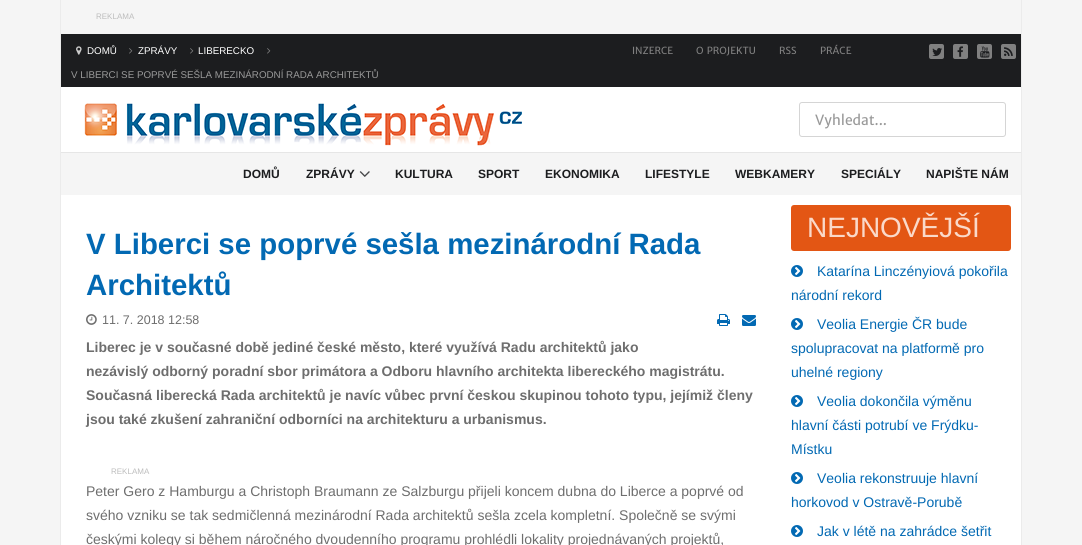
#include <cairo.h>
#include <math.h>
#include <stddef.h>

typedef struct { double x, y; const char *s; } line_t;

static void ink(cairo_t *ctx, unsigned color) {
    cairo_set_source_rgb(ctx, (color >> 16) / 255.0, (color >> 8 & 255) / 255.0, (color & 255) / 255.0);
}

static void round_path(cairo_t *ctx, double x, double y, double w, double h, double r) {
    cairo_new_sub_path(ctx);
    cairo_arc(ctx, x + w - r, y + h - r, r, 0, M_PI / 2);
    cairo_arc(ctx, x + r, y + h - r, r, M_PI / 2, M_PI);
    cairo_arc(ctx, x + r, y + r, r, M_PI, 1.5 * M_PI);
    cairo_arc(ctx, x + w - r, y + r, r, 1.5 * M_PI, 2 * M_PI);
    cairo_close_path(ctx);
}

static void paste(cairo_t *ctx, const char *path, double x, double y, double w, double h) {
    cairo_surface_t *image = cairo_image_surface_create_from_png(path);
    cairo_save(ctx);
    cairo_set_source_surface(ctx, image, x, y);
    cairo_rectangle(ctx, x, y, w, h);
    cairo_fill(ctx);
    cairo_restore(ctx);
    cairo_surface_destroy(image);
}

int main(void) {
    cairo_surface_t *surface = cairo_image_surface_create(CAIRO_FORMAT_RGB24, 1082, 545);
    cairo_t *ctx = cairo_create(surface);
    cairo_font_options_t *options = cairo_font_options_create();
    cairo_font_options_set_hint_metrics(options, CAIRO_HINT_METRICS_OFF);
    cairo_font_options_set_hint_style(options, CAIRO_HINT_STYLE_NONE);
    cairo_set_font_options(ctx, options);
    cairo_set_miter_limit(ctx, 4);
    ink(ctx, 0xF5F5F5);
    cairo_paint(ctx);
    ink(ctx, 0xEBEBEB);
    cairo_rectangle(ctx, 1021, 0, 1, 545);
    cairo_fill(ctx);
    cairo_rectangle(ctx, 60, 0, 1, 545);
    cairo_fill(ctx);
    cairo_select_font_face(ctx, "Liberation Sans", CAIRO_FONT_SLANT_NORMAL, CAIRO_FONT_WEIGHT_NORMAL);
    cairo_set_font_size(ctx, 8);
    ink(ctx, 0xBCBCBC);
    cairo_move_to(ctx, 96, 19);
    cairo_show_text(ctx, "REKLAMA");
    ink(ctx, 0x1C1D1F);
    cairo_rectangle(ctx, 61, 34, 960, 53);
    cairo_fill(ctx);
    paste(ctx, "media/1.png", 76, 46, 6, 9);
    cairo_set_font_size(ctx, 9.8);
    ink(ctx, 0xFFFFFF);
    cairo_move_to(ctx, 87, 54);
    cairo_show_text(ctx, "DOMŮ");
    paste(ctx, "media/2.png", 129, 48, 4, 6);
    cairo_move_to(ctx, 138, 54);
    cairo_show_text(ctx, "ZPRÁVY");
    paste(ctx, "media/2.png", 190, 48, 4, 6);
    cairo_move_to(ctx, 198, 54);
    cairo_show_text(ctx, "LIBERECKO");
    paste(ctx, "media/2.png", 267, 48, 4, 6);
    ink(ctx, 0x999999);
    cairo_move_to(ctx, 71, 78);
    cairo_show_text(ctx, "V LIBERCI SE POPRVÉ SEŠLA MEZINÁRODNÍ RADA ARCHITEKTŮ");
    cairo_select_font_face(ctx, "Merriweather Sans", CAIRO_FONT_SLANT_NORMAL, CAIRO_FONT_WEIGHT_NORMAL);
    ink(ctx, 0x808080);
    {
        static const line_t items[] = {
            {632, 54, "INZERCE"},
            {696, 54, "O PROJEKTU"},
            {779, 54, "RSS"},
            {820, 54, "PRÁCE"},
        };
        for (size_t i = 0; i < sizeof items / sizeof *items; i++) {
            cairo_move_to(ctx, items[i].x, items[i].y);
            cairo_show_text(ctx, items[i].s);
        }
    }
    round_path(ctx, 929, 44, 15, 15, 2);
    cairo_fill(ctx);
    paste(ctx, "media/3.png", 932, 48, 10, 8);
    round_path(ctx, 953, 44, 15, 15, 2);
    cairo_fill(ctx);
    paste(ctx, "media/4.png", 957, 46, 6, 11);
    round_path(ctx, 977, 44, 15, 15, 2);
    cairo_fill(ctx);
    paste(ctx, "media/5.png", 980, 46, 10, 12);
    round_path(ctx, 1001, 44, 15, 15, 2);
    cairo_fill(ctx);
    paste(ctx, "media/6.png", 1004, 47, 9, 9);
    ink(ctx, 0xFFFFFF);
    cairo_rectangle(ctx, 61, 87, 960, 65);
    cairo_fill(ctx);
    ink(ctx, 0xE6E6E6);
    cairo_rectangle(ctx, 61, 152, 960, 1);
    cairo_fill(ctx);
    paste(ctx, "media/7.png", 84, 103, 438, 43);
    round_path(ctx, 799.5, 102.5, 206, 34, 2.5);
    ink(ctx, 0xD5D5D5);
    cairo_set_line_width(ctx, 1);
    cairo_stroke(ctx);
    cairo_set_font_size(ctx, 14);
    ink(ctx, 0x999999);
    cairo_move_to(ctx, 815, 125);
    cairo_show_text(ctx, "Vyhledat...");
    cairo_select_font_face(ctx, "Liberation Sans", CAIRO_FONT_SLANT_NORMAL, CAIRO_FONT_WEIGHT_BOLD);
    cairo_set_font_size(ctx, 12);
    ink(ctx, 0x1C1D1F);
    cairo_move_to(ctx, 243, 178);
    cairo_show_text(ctx, "DOMŮ");
    cairo_move_to(ctx, 306, 178);
    cairo_show_text(ctx, "ZPRÁVY");
    paste(ctx, "media/8.png", 359, 171, 11, 6);
    {
        static const line_t items[] = {
            {395, 178, "KULTURA"},
            {478, 178, "SPORT"},
            {545, 178, "EKONOMIKA"},
            {645, 178, "LIFESTYLE"},
            {735, 178, "WEBKAMERY"},
            {841, 178, "SPECIÁLY"},
            {926, 178, "NAPIŠTE NÁM"},
        };
        for (size_t i = 0; i < sizeof items / sizeof *items; i++) {
            cairo_move_to(ctx, items[i].x, items[i].y);
            cairo_show_text(ctx, items[i].s);
        }
    }
    ink(ctx, 0xFFFFFF);
    cairo_rectangle(ctx, 61, 195, 960, 350);
    cairo_fill(ctx);
    cairo_set_font_size(ctx, 29.4);
    ink(ctx, 0x0269B3);
    cairo_move_to(ctx, 86, 254);
    cairo_show_text(ctx, "V Liberci se poprvé sešla mezinárodní Rada");
    cairo_move_to(ctx, 86, 295);
    cairo_show_text(ctx, "Architektů");
    paste(ctx, "media/9.png", 86, 314, 11, 11);
    cairo_select_font_face(ctx, "Liberation Sans", CAIRO_FONT_SLANT_NORMAL, CAIRO_FONT_WEIGHT_NORMAL);
    cairo_set_font_size(ctx, 12.5);
    ink(ctx, 0x6E6E6E);
    cairo_move_to(ctx, 102, 324);
    cairo_show_text(ctx, "11. 7. 2018 12:58");
    paste(ctx, "media/10.png", 717, 314, 13, 12);
    paste(ctx, "media/11.png", 742, 315, 14, 11);
    cairo_select_font_face(ctx, "Liberation Sans", CAIRO_FONT_SLANT_NORMAL, CAIRO_FONT_WEIGHT_BOLD);
    cairo_set_font_size(ctx, 14);
    {
        static const line_t items[] = {
            {86, 352, "Liberec je v současné době jediné české město, které využívá Radu architektů jako"},
            {86, 376, "nezávislý odborný poradní sbor primátora a Odboru hlavního architekta libereckého magistrátu."},
            {86, 400, "Současná liberecká Rada architektů je navíc vůbec první českou skupinou tohoto typu, jejímiž členy"},
            {86, 424, "jsou také zkušení zahraniční odborníci na architekturu a urbanismus."},
        };
        for (size_t i = 0; i < sizeof items / sizeof *items; i++) {
            cairo_move_to(ctx, items[i].x, items[i].y);
            cairo_show_text(ctx, items[i].s);
        }
    }
    cairo_select_font_face(ctx, "Liberation Sans", CAIRO_FONT_SLANT_NORMAL, CAIRO_FONT_WEIGHT_NORMAL);
    cairo_set_font_size(ctx, 8);
    ink(ctx, 0xBCBCBC);
    cairo_move_to(ctx, 111, 474);
    cairo_show_text(ctx, "REKLAMA");
    cairo_set_font_size(ctx, 14);
    ink(ctx, 0x6E6E6E);
    {
        static const line_t items[] = {
            {86, 496, "Peter Gero z Hamburgu a Christoph Braumann ze Salzburgu přijeli koncem dubna do Liberce a poprvé od"},
            {86, 520, "svého vzniku se tak sedmičlenná mezinárodní Rada architektů sešla zcela kompletní. Společně se svými"},
            {86, 544, "českými kolegy si během náročného dvoudenního programu prohlédli lokality projednávaných projektů,"},
        };
        for (size_t i = 0; i < sizeof items / sizeof *items; i++) {
            cairo_move_to(ctx, items[i].x, items[i].y);
            cairo_show_text(ctx, items[i].s);
        }
    }
    ink(ctx, 0xE35614);
    round_path(ctx, 791, 205, 220, 46, 3);
    cairo_fill(ctx);
    cairo_set_font_size(ctx, 28);
    ink(ctx, 0xFAD9C9);
    cairo_move_to(ctx, 807, 237);
    cairo_show_text(ctx, "NEJNOVĚJŠÍ");
    paste(ctx, "media/12.png", 791, 265, 12, 12);
    cairo_set_font_size(ctx, 14);
    ink(ctx, 0x0269B3);
    cairo_move_to(ctx, 817, 276);
    cairo_show_text(ctx, "Katarína Linczényiová pokořila");
    cairo_move_to(ctx, 791, 300);
    cairo_show_text(ctx, "národní rekord");
    paste(ctx, "media/12.png", 791, 318, 12, 12);
    {
        static const line_t items[] = {
            {817, 329, "Veolia Energie ČR bude"},
            {791, 353, "spolupracovat na platformě pro"},
            {791, 377, "uhelné regiony"},
        };
        for (size_t i = 0; i < sizeof items / sizeof *items; i++) {
            cairo_move_to(ctx, items[i].x, items[i].y);
            cairo_show_text(ctx, items[i].s);
        }
    }
    paste(ctx, "media/12.png", 791, 395, 12, 12);
    {
        static const line_t items[] = {
            {817, 406, "Veolia dokončila výměnu"},
            {791, 430, "hlavní části potrubí ve Frýdku-"},
            {791, 454, "Místku"},
        };
        for (size_t i = 0; i < sizeof items / sizeof *items; i++) {
            cairo_move_to(ctx, items[i].x, items[i].y);
            cairo_show_text(ctx, items[i].s);
        }
    }
    paste(ctx, "media/12.png", 791, 472, 12, 12);
    cairo_move_to(ctx, 817, 483);
    cairo_show_text(ctx, "Veolia rekonstruuje hlavní");
    cairo_move_to(ctx, 791, 507);
    cairo_show_text(ctx, "horkovod v Ostravě-Porubě");
    paste(ctx, "media/12.png", 791, 525, 12, 12);
    cairo_move_to(ctx, 817, 536);
    cairo_show_text(ctx, "Jak v létě na zahrádce šetřit");
    cairo_surface_write_to_png(surface, "image.png");
    cairo_font_options_destroy(options);
    cairo_destroy(ctx);
    cairo_surface_destroy(surface);
    return 0;
}
